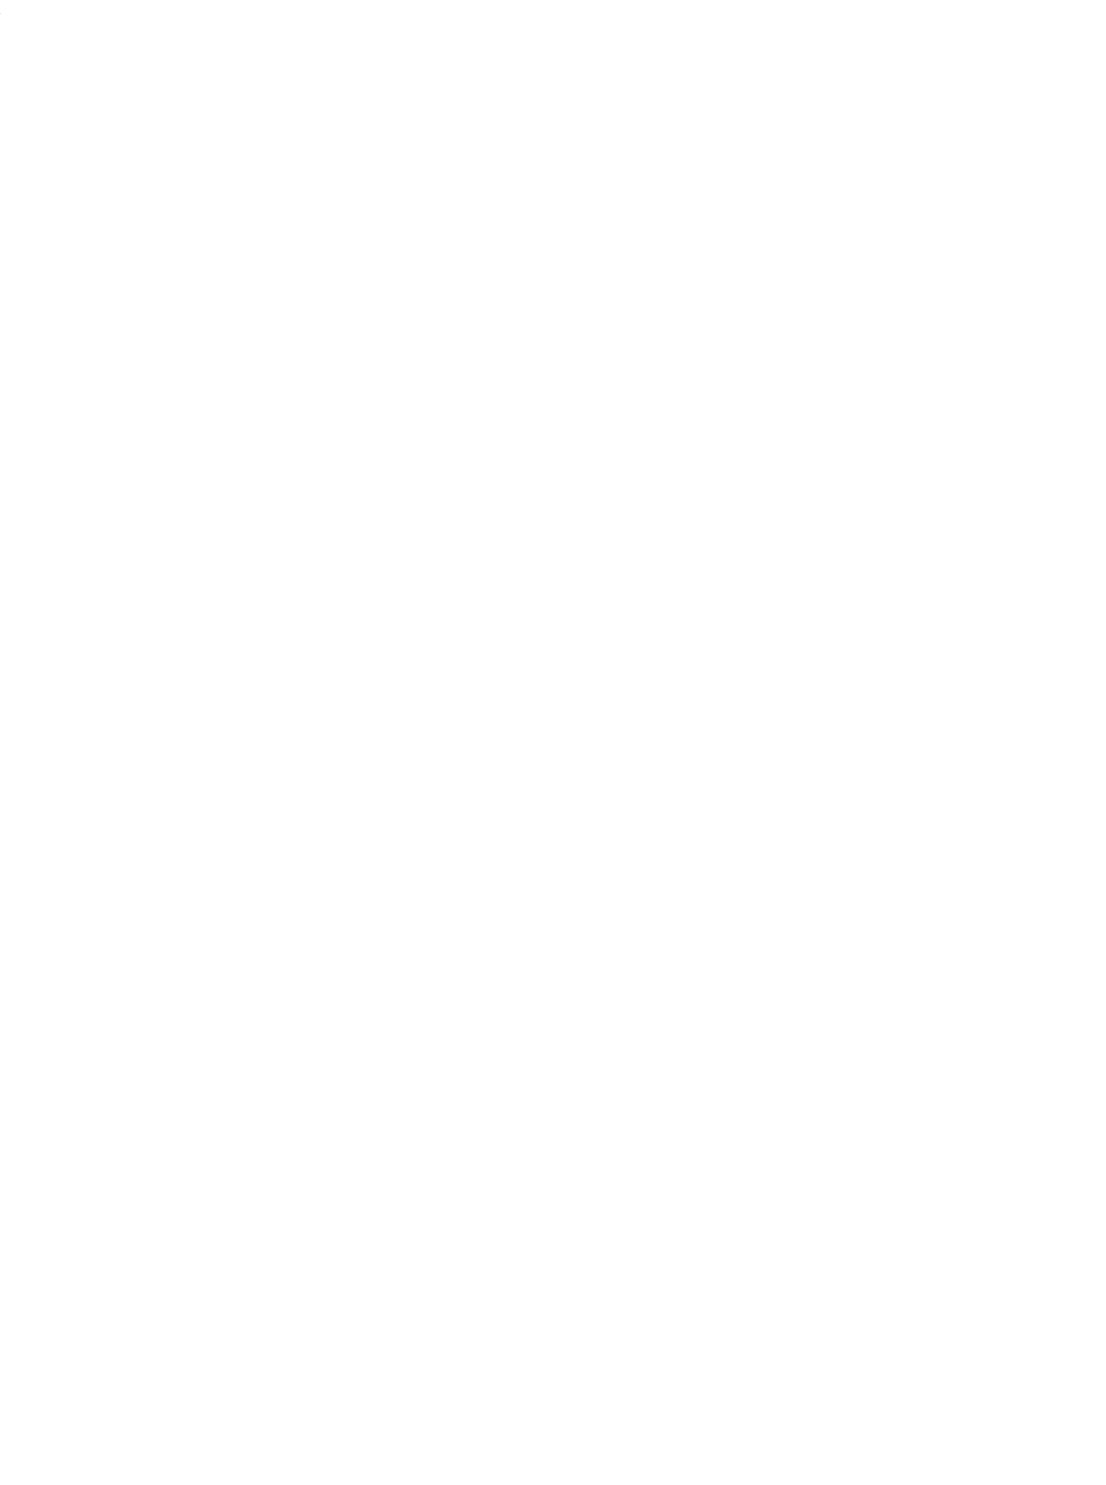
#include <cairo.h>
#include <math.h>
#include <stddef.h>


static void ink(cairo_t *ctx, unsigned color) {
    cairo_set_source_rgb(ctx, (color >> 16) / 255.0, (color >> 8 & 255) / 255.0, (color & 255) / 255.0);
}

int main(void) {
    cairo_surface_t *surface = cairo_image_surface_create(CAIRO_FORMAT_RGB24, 1106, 1485);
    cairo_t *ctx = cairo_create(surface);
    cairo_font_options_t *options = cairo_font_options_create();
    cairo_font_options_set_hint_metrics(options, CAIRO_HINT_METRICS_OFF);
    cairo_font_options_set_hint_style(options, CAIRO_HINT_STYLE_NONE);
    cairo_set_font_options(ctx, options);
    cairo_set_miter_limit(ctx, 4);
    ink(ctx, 0xFFFFFF);
    cairo_paint(ctx);
    ink(ctx, 0xDEE0FA);
    cairo_rectangle(ctx, 0, 13, 1, 1);
    cairo_fill(ctx);
    cairo_surface_write_to_png(surface, "image.png");
    cairo_font_options_destroy(options);
    cairo_destroy(ctx);
    cairo_surface_destroy(surface);
    return 0;
}
